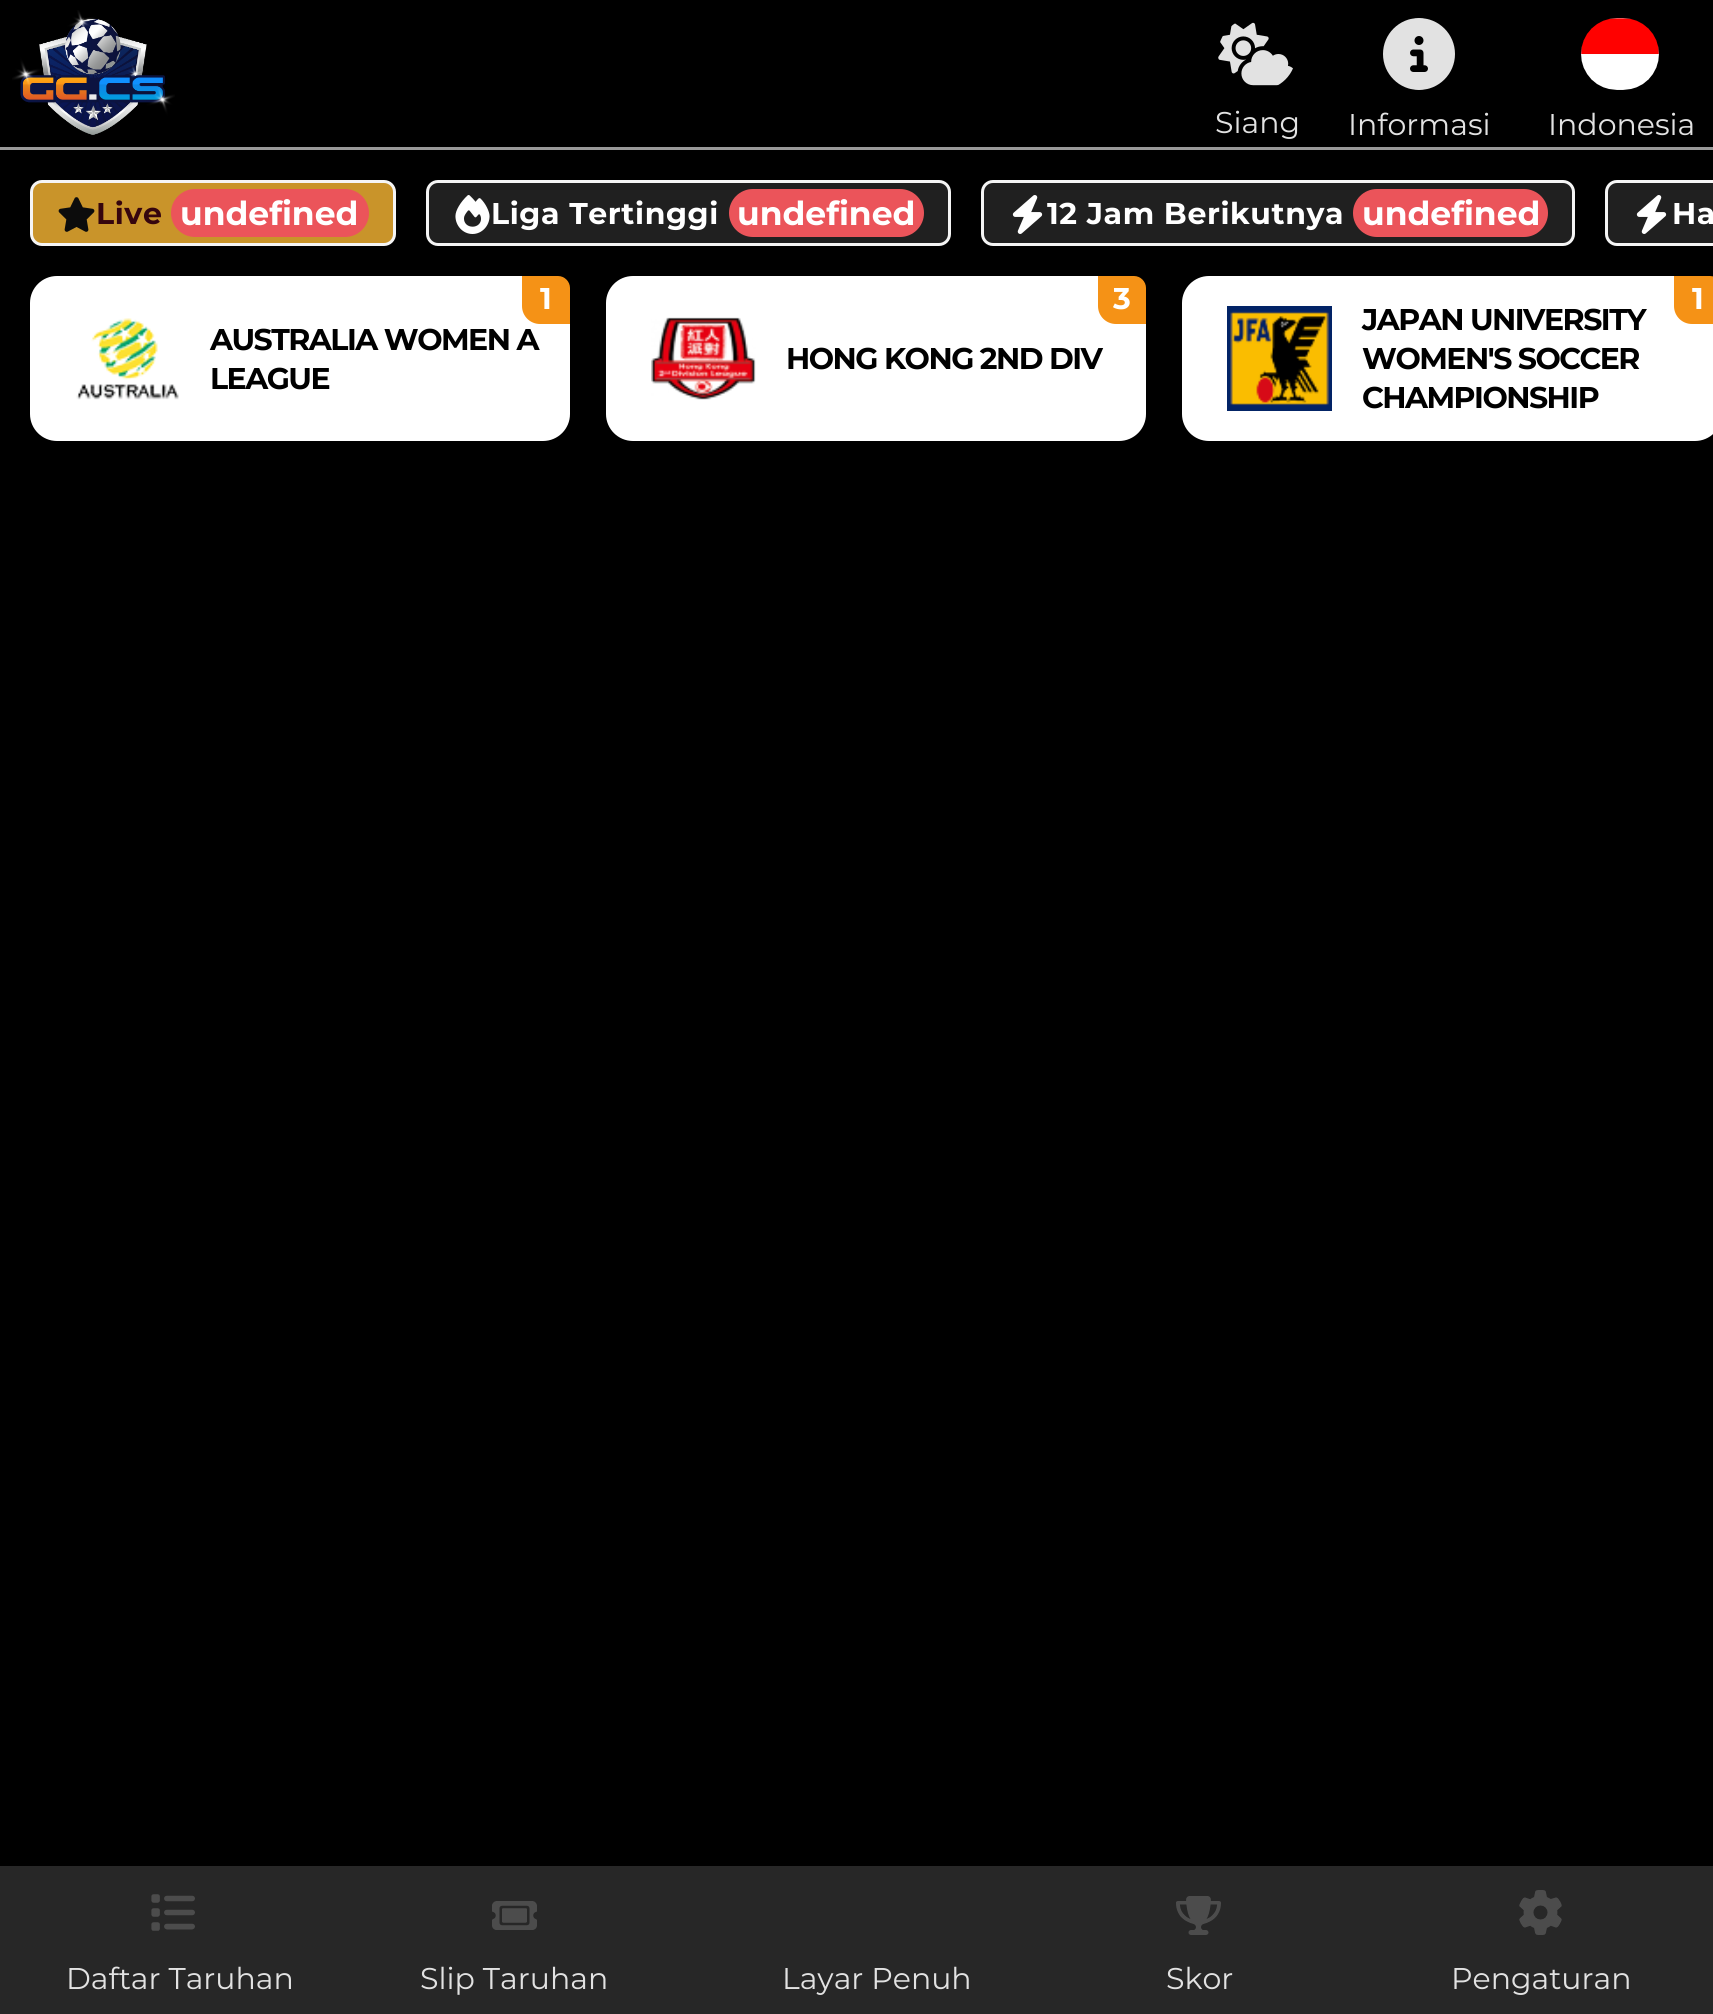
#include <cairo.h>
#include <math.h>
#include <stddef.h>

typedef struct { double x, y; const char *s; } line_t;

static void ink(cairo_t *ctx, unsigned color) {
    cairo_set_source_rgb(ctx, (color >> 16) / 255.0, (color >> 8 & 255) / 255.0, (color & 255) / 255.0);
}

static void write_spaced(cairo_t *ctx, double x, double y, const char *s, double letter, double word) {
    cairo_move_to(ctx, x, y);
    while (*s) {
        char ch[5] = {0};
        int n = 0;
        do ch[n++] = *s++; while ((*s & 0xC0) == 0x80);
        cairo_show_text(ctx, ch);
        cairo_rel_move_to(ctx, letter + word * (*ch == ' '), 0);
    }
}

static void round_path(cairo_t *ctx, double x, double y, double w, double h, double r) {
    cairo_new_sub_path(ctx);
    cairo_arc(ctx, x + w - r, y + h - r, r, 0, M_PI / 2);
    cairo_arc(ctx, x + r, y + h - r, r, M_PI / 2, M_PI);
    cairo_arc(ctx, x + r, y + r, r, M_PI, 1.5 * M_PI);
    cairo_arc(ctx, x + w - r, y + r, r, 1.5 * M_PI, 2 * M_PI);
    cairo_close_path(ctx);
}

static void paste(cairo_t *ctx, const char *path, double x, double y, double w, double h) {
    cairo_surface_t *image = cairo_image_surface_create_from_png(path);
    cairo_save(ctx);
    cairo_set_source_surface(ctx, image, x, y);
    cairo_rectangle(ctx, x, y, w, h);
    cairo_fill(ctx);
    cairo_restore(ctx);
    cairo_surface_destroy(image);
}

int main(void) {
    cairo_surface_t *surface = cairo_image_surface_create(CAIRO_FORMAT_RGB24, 1713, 2014);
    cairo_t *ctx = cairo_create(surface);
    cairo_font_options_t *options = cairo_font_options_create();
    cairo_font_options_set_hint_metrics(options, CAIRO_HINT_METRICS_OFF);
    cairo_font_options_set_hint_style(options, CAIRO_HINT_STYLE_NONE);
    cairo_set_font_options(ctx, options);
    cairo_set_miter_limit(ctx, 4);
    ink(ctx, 0x000000);
    cairo_paint(ctx);
    ink(ctx, 0x999999);
    cairo_rectangle(ctx, 0, 147, 1713, 3);
    cairo_fill(ctx);
    paste(ctx, "media/1.png", 12, 10, 163, 125);
    paste(ctx, "media/2.png", 1218, 22, 75, 64);
    cairo_select_font_face(ctx, "Montserrat", CAIRO_FONT_SLANT_NORMAL, CAIRO_FONT_WEIGHT_NORMAL);
    cairo_set_font_size(ctx, 30);
    ink(ctx, 0xE2E2E2);
    cairo_move_to(ctx, 1215, 133);
    cairo_show_text(ctx, "Siang");
    paste(ctx, "media/3.png", 1383, 18, 72, 72);
    cairo_move_to(ctx, 1348, 135);
    cairo_show_text(ctx, "Informasi");
    paste(ctx, "media/4.png", 1581, 18, 78, 72);
    cairo_move_to(ctx, 1548, 135);
    cairo_show_text(ctx, "Indonesia");
    ink(ctx, 0xC9942A);
    round_path(ctx, 31.5, 181.5, 363, 63, 10.5);
    cairo_fill_preserve(ctx);
    ink(ctx, 0xF5F5F5);
    cairo_set_line_width(ctx, 3);
    cairo_stroke(ctx);
    paste(ctx, "media/5.png", 58, 197, 37, 35);
    cairo_select_font_face(ctx, "Montserrat", CAIRO_FONT_SLANT_NORMAL, CAIRO_FONT_WEIGHT_BOLD);
    ink(ctx, 0x36050E);
    write_spaced(ctx, 96, 224, "Live", 0.6, 0);
    ink(ctx, 0xEB545A);
    round_path(ctx, 171, 189, 198, 48, 24);
    cairo_fill(ctx);
    cairo_set_font_size(ctx, 33);
    ink(ctx, 0xFFFFFF);
    cairo_move_to(ctx, 180, 225);
    cairo_show_text(ctx, "undefined");
    ink(ctx, 0x202020);
    round_path(ctx, 427.5, 181.5, 522, 63, 10.5);
    cairo_fill_preserve(ctx);
    ink(ctx, 0xF5F5F5);
    cairo_stroke(ctx);
    paste(ctx, "media/6.png", 455, 195, 35, 39);
    cairo_set_font_size(ctx, 30);
    ink(ctx, 0xFFFFFF);
    write_spaced(ctx, 491, 224, "Liga Tertinggi", 0.6, 0);
    ink(ctx, 0xEB545A);
    round_path(ctx, 729, 189, 195, 48, 24);
    cairo_fill(ctx);
    cairo_set_font_size(ctx, 33);
    ink(ctx, 0xFFFFFF);
    cairo_move_to(ctx, 737, 225);
    cairo_show_text(ctx, "undefined");
    ink(ctx, 0x202020);
    round_path(ctx, 982.5, 181.5, 591, 63, 10.5);
    cairo_fill_preserve(ctx);
    ink(ctx, 0xF5F5F5);
    cairo_stroke(ctx);
    paste(ctx, "media/7.png", 1012, 195, 31, 39);
    cairo_set_font_size(ctx, 30);
    ink(ctx, 0xFFFFFF);
    write_spaced(ctx, 1047, 224, "12 Jam Berikutnya", 0.6, 0);
    ink(ctx, 0xEB545A);
    round_path(ctx, 1353, 189, 195, 48, 24);
    cairo_fill(ctx);
    cairo_set_font_size(ctx, 33);
    ink(ctx, 0xFFFFFF);
    cairo_move_to(ctx, 1362, 225);
    cairo_show_text(ctx, "undefined");
    ink(ctx, 0x202020);
    cairo_new_path(ctx);
    cairo_move_to(ctx, 1617, 180);
    cairo_line_to(ctx, 1713, 180);
    cairo_line_to(ctx, 1713, 246);
    cairo_line_to(ctx, 1617, 246);
    cairo_curve_to(ctx, 1610.5, 246, 1605, 240.5, 1605, 234);
    cairo_line_to(ctx, 1605, 192);
    cairo_curve_to(ctx, 1605, 185.5, 1610.5, 180, 1617, 180);
    cairo_close_path(ctx);
    cairo_fill(ctx);
    round_path(ctx, 1606.5, 181.5, 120, 63, 10.5);
    ink(ctx, 0xF5F5F5);
    cairo_stroke(ctx);
    paste(ctx, "media/7.png", 1636, 195, 31, 39);
    cairo_set_font_size(ctx, 30);
    ink(ctx, 0xFFFFFF);
    write_spaced(ctx, 1672, 224, "Ha", 0.6, 0);
    round_path(ctx, 30, 276, 540, 165, 27);
    cairo_fill(ctx);
    ink(ctx, 0xF59216);
    cairo_new_path(ctx);
    cairo_move_to(ctx, 522, 276);
    cairo_line_to(ctx, 558, 276);
    cairo_curve_to(ctx, 564.5, 276, 570, 281.5, 570, 288);
    cairo_line_to(ctx, 570, 324);
    cairo_line_to(ctx, 540, 324);
    cairo_curve_to(ctx, 530, 324, 522, 316, 522, 306);
    cairo_close_path(ctx);
    cairo_fill(ctx);
    ink(ctx, 0xFFFFFF);
    cairo_move_to(ctx, 540, 309);
    cairo_show_text(ctx, "1");
    paste(ctx, "media/8.png", 76, 318, 103, 82);
    ink(ctx, 0x000000);
    write_spaced(ctx, 210, 350, "AUSTRALIA WOMEN A", -1.5, 0);
    write_spaced(ctx, 210, 389, "LEAGUE", -1.5, 0);
    ink(ctx, 0xFFFFFF);
    round_path(ctx, 606, 276, 540, 165, 27);
    cairo_fill(ctx);
    ink(ctx, 0xF59216);
    cairo_new_path(ctx);
    cairo_move_to(ctx, 1098, 276);
    cairo_line_to(ctx, 1134, 276);
    cairo_curve_to(ctx, 1140.5, 276, 1146, 281.5, 1146, 288);
    cairo_line_to(ctx, 1146, 324);
    cairo_line_to(ctx, 1116, 324);
    cairo_curve_to(ctx, 1106, 324, 1098, 316, 1098, 306);
    cairo_close_path(ctx);
    cairo_fill(ctx);
    ink(ctx, 0xFFFFFF);
    cairo_move_to(ctx, 1113, 309);
    cairo_show_text(ctx, "3");
    paste(ctx, "media/9.png", 651, 317, 105, 83);
    ink(ctx, 0x000000);
    write_spaced(ctx, 786, 369, "HONG KONG 2ND DIV", -1.5, 0);
    ink(ctx, 0xFFFFFF);
    round_path(ctx, 1182, 276, 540, 165, 27);
    cairo_fill(ctx);
    ink(ctx, 0xF59216);
    cairo_new_path(ctx);
    cairo_move_to(ctx, 1674, 276);
    cairo_line_to(ctx, 1710, 276);
    cairo_curve_to(ctx, 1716.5, 276, 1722, 281.5, 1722, 288);
    cairo_line_to(ctx, 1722, 324);
    cairo_line_to(ctx, 1692, 324);
    cairo_curve_to(ctx, 1682, 324, 1674, 316, 1674, 306);
    cairo_close_path(ctx);
    cairo_fill(ctx);
    ink(ctx, 0xFFFFFF);
    cairo_move_to(ctx, 1692, 309);
    cairo_show_text(ctx, "1");
    paste(ctx, "media/10.png", 1227, 306, 105, 105);
    ink(ctx, 0x000000);
    {
        static const line_t items[] = {
            {1362, 330, "JAPAN UNIVERSITY"},
            {1362, 369, "WOMEN'S SOCCER"},
            {1362, 408, "CHAMPIONSHIP"},
        };
        for (size_t i = 0; i < sizeof items / sizeof *items; i++) {
            write_spaced(ctx, items[i].x, items[i].y, items[i].s, -1.5, 0);
        }
    }
    ink(ctx, 0x272727);
    cairo_rectangle(ctx, 0, 1866, 1713, 148);
    cairo_fill(ctx);
    paste(ctx, "media/11.png", 151, 1894, 44, 37);
    cairo_select_font_face(ctx, "Montserrat", CAIRO_FONT_SLANT_NORMAL, CAIRO_FONT_WEIGHT_NORMAL);
    ink(ctx, 0xE2E2E2);
    cairo_move_to(ctx, 66, 1989);
    cairo_show_text(ctx, "Daftar Taruhan");
    paste(ctx, "media/12.png", 492, 1901, 45, 29);
    cairo_move_to(ctx, 420, 1989);
    cairo_show_text(ctx, "Slip Taruhan");
    cairo_move_to(ctx, 782, 1989);
    cairo_show_text(ctx, "Layar Penuh");
    paste(ctx, "media/13.png", 1176, 1896, 45, 39);
    cairo_move_to(ctx, 1166, 1989);
    cairo_show_text(ctx, "Skor");
    paste(ctx, "media/14.png", 1519, 1890, 43, 45);
    cairo_move_to(ctx, 1451, 1989);
    cairo_show_text(ctx, "Pengaturan");
    cairo_surface_write_to_png(surface, "image.png");
    cairo_font_options_destroy(options);
    cairo_destroy(ctx);
    cairo_surface_destroy(surface);
    return 0;
}
